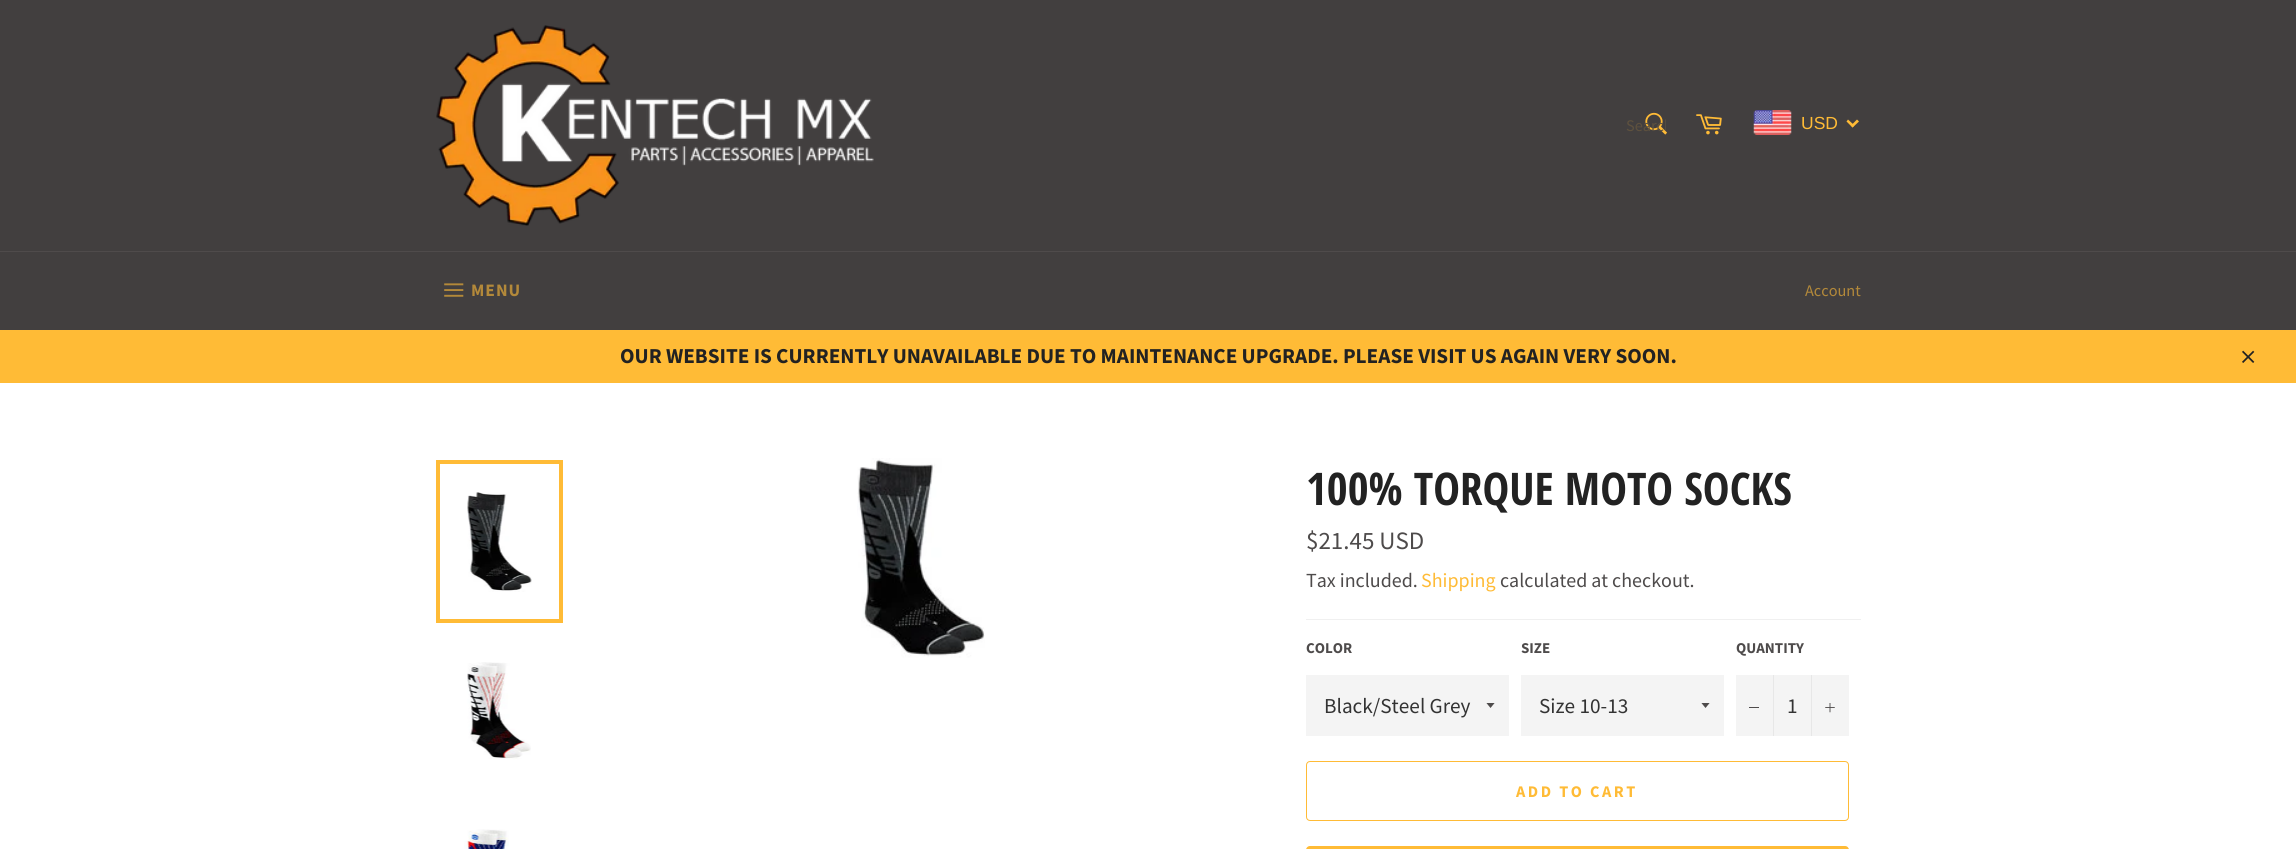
#include <cairo.h>
#include <math.h>
#include <stddef.h>

typedef struct { double x, y, w, h; unsigned color; } box_t;

static void ink(cairo_t *ctx, unsigned color) {
    cairo_set_source_rgb(ctx, (color >> 16) / 255.0, (color >> 8 & 255) / 255.0, (color & 255) / 255.0);
}

static void write_spaced(cairo_t *ctx, double x, double y, const char *s, double letter, double word) {
    cairo_move_to(ctx, x, y);
    while (*s) {
        char ch[5] = {0};
        int n = 0;
        do ch[n++] = *s++; while ((*s & 0xC0) == 0x80);
        cairo_show_text(ctx, ch);
        cairo_rel_move_to(ctx, letter + word * (*ch == ' '), 0);
    }
}

static void round_path(cairo_t *ctx, double x, double y, double w, double h, double r) {
    cairo_new_sub_path(ctx);
    cairo_arc(ctx, x + w - r, y + h - r, r, 0, M_PI / 2);
    cairo_arc(ctx, x + r, y + h - r, r, M_PI / 2, M_PI);
    cairo_arc(ctx, x + r, y + r, r, M_PI, 1.5 * M_PI);
    cairo_arc(ctx, x + w - r, y + r, r, 1.5 * M_PI, 2 * M_PI);
    cairo_close_path(ctx);
}

static void paste(cairo_t *ctx, const char *path, double x, double y, double w, double h) {
    cairo_surface_t *image = cairo_image_surface_create_from_png(path);
    cairo_save(ctx);
    cairo_set_source_surface(ctx, image, x, y);
    cairo_rectangle(ctx, x, y, w, h);
    cairo_fill(ctx);
    cairo_restore(ctx);
    cairo_surface_destroy(image);
}

int main(void) {
    cairo_surface_t *surface = cairo_image_surface_create(CAIRO_FORMAT_RGB24, 2296, 849);
    cairo_t *ctx = cairo_create(surface);
    cairo_font_options_t *options = cairo_font_options_create();
    cairo_font_options_set_hint_metrics(options, CAIRO_HINT_METRICS_OFF);
    cairo_font_options_set_hint_style(options, CAIRO_HINT_STYLE_NONE);
    cairo_set_font_options(ctx, options);
    cairo_set_miter_limit(ctx, 4);
    ink(ctx, 0x423F3F);
    cairo_paint(ctx);
    paste(ctx, "media/1.png", 436, 25, 438, 201);
    paste(ctx, "media/2.png", 1645, 112, 22, 23);
    cairo_save(ctx);
    cairo_rectangle(ctx, 1626, 115, 40, 21);
    cairo_clip(ctx);
    cairo_select_font_face(ctx, "Source Sans Pro", CAIRO_FONT_SLANT_NORMAL, CAIRO_FONT_WEIGHT_NORMAL);
    cairo_set_font_size(ctx, 16.25);
    ink(ctx, 0x5E513E);
    cairo_move_to(ctx, 1626, 131);
    cairo_show_text(ctx, "Search");
    cairo_restore(ctx);
    paste(ctx, "media/3.png", 1696, 114, 26, 21);
    paste(ctx, "media/4.png", 1753, 110, 39, 25);
    cairo_select_font_face(ctx, "Liberation Sans", CAIRO_FONT_SLANT_NORMAL, CAIRO_FONT_WEIGHT_NORMAL);
    cairo_set_font_size(ctx, 17.5);
    ink(ctx, 0xFFBB36);
    cairo_move_to(ctx, 1801, 129);
    cairo_show_text(ctx, "USD");
    cairo_new_path(ctx);
    cairo_move_to(ctx, 1857, 119.5);
    cairo_line_to(ctx, 1859, 121.5);
    cairo_line_to(ctx, 1852.5, 127.5);
    cairo_line_to(ctx, 1851, 125.5);
    cairo_close_path(ctx);
    cairo_fill(ctx);
    cairo_new_path(ctx);
    cairo_move_to(ctx, 1848, 119.5);
    cairo_line_to(ctx, 1854.5, 125.5);
    cairo_line_to(ctx, 1852.5, 127.5);
    cairo_line_to(ctx, 1846.5, 121.5);
    cairo_close_path(ctx);
    cairo_fill(ctx);
    ink(ctx, 0x4F4B4B);
    cairo_rectangle(ctx, 0, 251, 2296, 1);
    cairo_fill(ctx);
    paste(ctx, "media/5.png", 444, 283, 20, 14);
    cairo_select_font_face(ctx, "Source Sans Pro", CAIRO_FONT_SLANT_NORMAL, CAIRO_FONT_WEIGHT_BOLD);
    ink(ctx, 0xB3893A);
    write_spaced(ctx, 471, 296, "MENU", 1, 0);
    cairo_select_font_face(ctx, "Source Sans Pro", CAIRO_FONT_SLANT_NORMAL, CAIRO_FONT_WEIGHT_NORMAL);
    cairo_set_font_size(ctx, 16.25);
    cairo_move_to(ctx, 1805, 296);
    cairo_show_text(ctx, "Account");
    ink(ctx, 0xFFBB36);
    cairo_rectangle(ctx, 0, 330, 2296, 53);
    cairo_fill(ctx);
    cairo_select_font_face(ctx, "Source Sans Pro", CAIRO_FONT_SLANT_NORMAL, CAIRO_FONT_WEIGHT_BOLD);
    cairo_set_font_size(ctx, 21.25);
    ink(ctx, 0x222222);
    cairo_move_to(ctx, 620, 363);
    cairo_show_text(ctx, "OUR WEBSITE IS CURRENTLY UNAVAILABLE DUE TO MAINTENANCE UPGRADE. PLEASE VISIT US AGAIN VERY SOON.");
    paste(ctx, "media/6.png", 2242, 350, 13, 13);
    ink(ctx, 0xFFFFFF);
    cairo_rectangle(ctx, 0, 383, 2296, 466);
    cairo_fill(ctx);
    paste(ctx, "media/7.png", 467, 492, 65, 100);
    cairo_rectangle(ctx, 438, 462, 123, 159);
    ink(ctx, 0xFFBB36);
    cairo_set_line_width(ctx, 4);
    cairo_stroke(ctx);
    paste(ctx, "media/8.png", 467, 662, 64, 98);
    paste(ctx, "media/9.png", 464, 829, 45, 20);
    paste(ctx, "media/10.png", 857, 458, 128, 200);
    cairo_select_font_face(ctx, "Open Sans Condensed", CAIRO_FONT_SLANT_NORMAL, CAIRO_FONT_WEIGHT_BOLD);
    cairo_set_font_size(ctx, 45);
    ink(ctx, 0x222222);
    cairo_move_to(ctx, 1306, 505);
    cairo_show_text(ctx, "100% TORQUE MOTO SOCKS");
    cairo_select_font_face(ctx, "Source Sans Pro", CAIRO_FONT_SLANT_NORMAL, CAIRO_FONT_WEIGHT_NORMAL);
    cairo_set_font_size(ctx, 25);
    ink(ctx, 0x4E4B4B);
    cairo_move_to(ctx, 1306, 549);
    cairo_show_text(ctx, "$21.45 USD");
    cairo_set_font_size(ctx, 20);
    cairo_move_to(ctx, 1306, 587);
    cairo_show_text(ctx, "Tax included.");
    ink(ctx, 0xFFBB36);
    cairo_move_to(ctx, 1421, 587);
    cairo_show_text(ctx, "Shipping");
    ink(ctx, 0x4E4B4B);
    cairo_move_to(ctx, 1500, 587);
    cairo_show_text(ctx, "calculated at checkout.");
    ink(ctx, 0xF0F0F0);
    cairo_rectangle(ctx, 1306, 619, 555, 1);
    cairo_fill(ctx);
    cairo_select_font_face(ctx, "Source Sans Pro", CAIRO_FONT_SLANT_NORMAL, CAIRO_FONT_WEIGHT_BOLD);
    cairo_set_font_size(ctx, 15);
    ink(ctx, 0x4E4B4B);
    cairo_move_to(ctx, 1306, 653);
    cairo_show_text(ctx, "COLOR");
    ink(ctx, 0xF4F4F4);
    cairo_rectangle(ctx, 1306, 675, 203, 61);
    cairo_fill(ctx);
    cairo_save(ctx);
    cairo_rectangle(ctx, 1486, 703, 10, 6);
    cairo_clip(ctx);
    ink(ctx, 0x4E4B4B);
    cairo_new_path(ctx);
    cairo_move_to(ctx, 1486, 702.5);
    cairo_line_to(ctx, 1490.5, 708);
    cairo_line_to(ctx, 1495, 702.5);
    cairo_close_path(ctx);
    cairo_fill(ctx);
    cairo_restore(ctx);
    cairo_select_font_face(ctx, "Source Sans Pro", CAIRO_FONT_SLANT_NORMAL, CAIRO_FONT_WEIGHT_NORMAL);
    cairo_set_font_size(ctx, 21.25);
    ink(ctx, 0x333333);
    cairo_move_to(ctx, 1324, 713);
    cairo_show_text(ctx, "Black/Steel Grey");
    cairo_select_font_face(ctx, "Source Sans Pro", CAIRO_FONT_SLANT_NORMAL, CAIRO_FONT_WEIGHT_BOLD);
    cairo_set_font_size(ctx, 15);
    ink(ctx, 0x4E4B4B);
    cairo_move_to(ctx, 1521, 653);
    cairo_show_text(ctx, "SIZE");
    ink(ctx, 0xF4F4F4);
    cairo_rectangle(ctx, 1521, 675, 203, 61);
    cairo_fill(ctx);
    cairo_save(ctx);
    cairo_rectangle(ctx, 1701, 703, 10, 6);
    cairo_clip(ctx);
    ink(ctx, 0x4E4B4B);
    cairo_new_path(ctx);
    cairo_move_to(ctx, 1701, 702.5);
    cairo_line_to(ctx, 1705.5, 708);
    cairo_line_to(ctx, 1710, 702.5);
    cairo_close_path(ctx);
    cairo_fill(ctx);
    cairo_restore(ctx);
    cairo_select_font_face(ctx, "Source Sans Pro", CAIRO_FONT_SLANT_NORMAL, CAIRO_FONT_WEIGHT_NORMAL);
    cairo_set_font_size(ctx, 21.25);
    ink(ctx, 0x333333);
    cairo_move_to(ctx, 1539, 713);
    cairo_show_text(ctx, "Size 10-13");
    cairo_select_font_face(ctx, "Source Sans Pro", CAIRO_FONT_SLANT_NORMAL, CAIRO_FONT_WEIGHT_BOLD);
    cairo_set_font_size(ctx, 15);
    ink(ctx, 0x4E4B4B);
    cairo_move_to(ctx, 1736, 653);
    cairo_show_text(ctx, "QUANTITY");
    {
        static const box_t items[] = {
            {1736, 675, 113, 61, 0xF4F4F4},
            {1773, 675, 1, 61, 0xE7E7E7},
            {1749, 707, 10, 1, 0x4E4B4B},
        };
        for (size_t i = 0; i < sizeof items / sizeof *items; i++) {
            ink(ctx, items[i].color);
            cairo_rectangle(ctx, items[i].x, items[i].y, items[i].w, items[i].h);
            cairo_fill(ctx);
        }
    }
    cairo_select_font_face(ctx, "Source Sans Pro", CAIRO_FONT_SLANT_NORMAL, CAIRO_FONT_WEIGHT_NORMAL);
    cairo_set_font_size(ctx, 21.25);
    ink(ctx, 0x333333);
    cairo_move_to(ctx, 1787, 713);
    cairo_show_text(ctx, "1");
    ink(ctx, 0xE7E7E7);
    cairo_rectangle(ctx, 1811, 675, 1, 61);
    cairo_fill(ctx);
    paste(ctx, "media/11.png", 1825, 703, 10, 10);
    round_path(ctx, 1306.5, 761.5, 542, 59, 3.5);
    ink(ctx, 0xFFBB36);
    cairo_set_line_width(ctx, 1);
    cairo_stroke(ctx);
    cairo_select_font_face(ctx, "Source Sans Pro", CAIRO_FONT_SLANT_NORMAL, CAIRO_FONT_WEIGHT_BOLD);
    cairo_set_font_size(ctx, 16.25);
    write_spaced(ctx, 1516, 797, "ADD TO CART", 2.5, 0);
    round_path(ctx, 1306, 846, 543, 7, 4);
    cairo_fill(ctx);
    cairo_surface_write_to_png(surface, "image.png");
    cairo_font_options_destroy(options);
    cairo_destroy(ctx);
    cairo_surface_destroy(surface);
    return 0;
}
